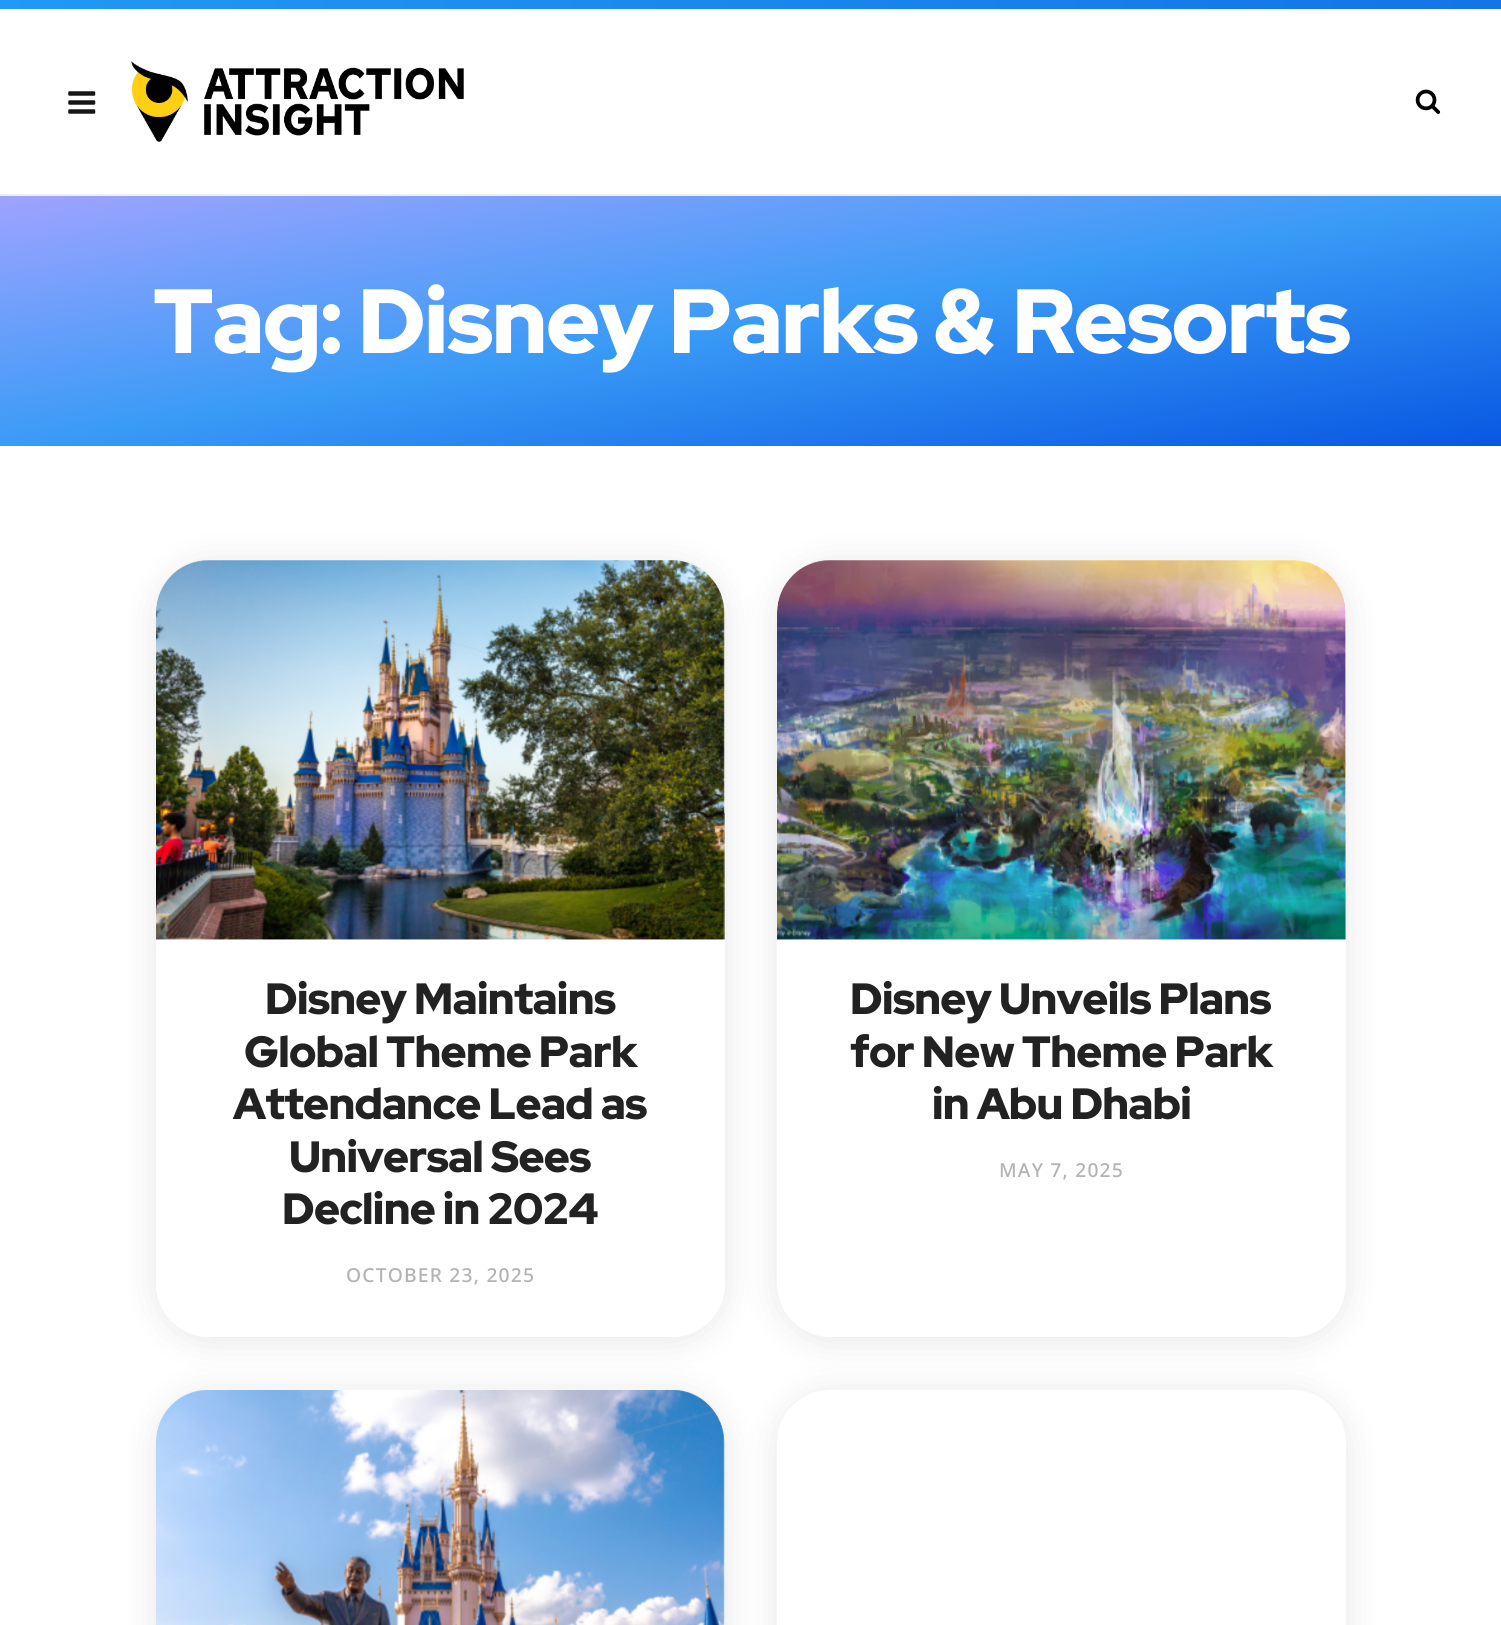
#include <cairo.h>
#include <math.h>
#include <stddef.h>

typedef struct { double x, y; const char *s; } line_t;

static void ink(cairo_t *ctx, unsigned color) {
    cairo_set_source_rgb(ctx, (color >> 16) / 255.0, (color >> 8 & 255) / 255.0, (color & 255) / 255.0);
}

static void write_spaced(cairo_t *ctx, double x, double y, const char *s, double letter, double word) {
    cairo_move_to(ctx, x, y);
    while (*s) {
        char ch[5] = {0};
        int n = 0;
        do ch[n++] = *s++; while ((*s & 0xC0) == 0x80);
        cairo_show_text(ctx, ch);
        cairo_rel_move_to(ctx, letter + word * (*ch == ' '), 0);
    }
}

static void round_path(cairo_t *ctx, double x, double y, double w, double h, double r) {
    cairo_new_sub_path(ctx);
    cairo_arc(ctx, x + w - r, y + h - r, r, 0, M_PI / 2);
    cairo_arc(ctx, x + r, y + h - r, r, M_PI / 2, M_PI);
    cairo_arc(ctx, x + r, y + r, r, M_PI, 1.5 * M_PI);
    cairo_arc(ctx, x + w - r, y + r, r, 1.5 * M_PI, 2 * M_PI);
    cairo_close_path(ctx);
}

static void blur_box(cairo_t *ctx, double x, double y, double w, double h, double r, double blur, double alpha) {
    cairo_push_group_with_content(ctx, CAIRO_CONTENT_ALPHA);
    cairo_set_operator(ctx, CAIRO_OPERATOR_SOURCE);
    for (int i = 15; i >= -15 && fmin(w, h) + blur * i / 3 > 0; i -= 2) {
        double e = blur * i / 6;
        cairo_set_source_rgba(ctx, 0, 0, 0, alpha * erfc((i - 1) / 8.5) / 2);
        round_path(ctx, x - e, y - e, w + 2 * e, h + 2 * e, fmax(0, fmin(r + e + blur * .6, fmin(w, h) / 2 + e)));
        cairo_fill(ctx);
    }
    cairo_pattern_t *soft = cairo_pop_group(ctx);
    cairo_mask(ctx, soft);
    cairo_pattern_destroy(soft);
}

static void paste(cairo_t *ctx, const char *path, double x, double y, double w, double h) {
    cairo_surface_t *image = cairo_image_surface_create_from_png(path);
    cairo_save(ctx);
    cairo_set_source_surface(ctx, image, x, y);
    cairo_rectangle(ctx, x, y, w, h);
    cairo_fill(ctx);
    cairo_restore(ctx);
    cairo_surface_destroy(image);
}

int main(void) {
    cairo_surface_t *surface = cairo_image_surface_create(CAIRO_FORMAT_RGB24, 1501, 1625);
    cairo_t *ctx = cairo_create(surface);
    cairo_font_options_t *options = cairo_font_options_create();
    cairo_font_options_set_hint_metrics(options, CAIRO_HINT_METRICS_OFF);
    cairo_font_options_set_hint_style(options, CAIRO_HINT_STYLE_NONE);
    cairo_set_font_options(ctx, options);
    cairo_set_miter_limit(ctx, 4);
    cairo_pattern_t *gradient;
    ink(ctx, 0xFFFFFF);
    cairo_paint(ctx);
    ink(ctx, 0xEFEFEF);
    cairo_rectangle(ctx, 0, 194, 1501, 2);
    cairo_fill(ctx);
    gradient = cairo_pattern_create_linear(0, 4.4, 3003, 4.4);
    cairo_pattern_add_color_stop_rgba(gradient, 0, 0.137, 0.596, 0.961, 1);
    cairo_pattern_add_color_stop_rgba(gradient, 1, 0.012, 0.318, 0.855, 1);
    cairo_set_source(ctx, gradient);
    cairo_pattern_destroy(gradient);
    cairo_rectangle(ctx, 0, 0, 1501, 9);
    cairo_fill(ctx);
    paste(ctx, "media/1.png", 68, 91, 28, 23);
    paste(ctx, "media/2.png", 131, 61, 333, 81);
    paste(ctx, "media/3.png", 1415, 89, 26, 25);
    gradient = cairo_pattern_create_linear(710, 78, 791, 565);
    cairo_pattern_add_color_stop_rgba(gradient, 0, 0.62, 0.639, 1, 1);
    cairo_pattern_add_color_stop_rgba(gradient, 0.5, 0.227, 0.608, 0.965, 1);
    cairo_pattern_add_color_stop_rgba(gradient, 1, 0.031, 0.341, 0.886, 1);
    cairo_set_source(ctx, gradient);
    cairo_pattern_destroy(gradient);
    cairo_rectangle(ctx, 0, 196, 1501, 250);
    cairo_fill(ctx);
    cairo_select_font_face(ctx, "Red Hat Display Black", CAIRO_FONT_SLANT_NORMAL, CAIRO_FONT_WEIGHT_NORMAL);
    cairo_set_font_size(ctx, 91);
    ink(ctx, 0xFFFFFF);
    write_spaced(ctx, 153, 353, "Tag: Disney Parks & Resorts", -1.35, 0);
    ink(ctx, 0x000000);
    blur_box(ctx, 156, 564, 569, 777, 53, 17.5, 0.1);
    ink(ctx, 0xFFFFFF);
    round_path(ctx, 156, 560, 569, 777, 53);
    cairo_fill(ctx);
    cairo_new_path(ctx);
    cairo_move_to(ctx, 156, 940);
    cairo_line_to(ctx, 725, 940);
    cairo_line_to(ctx, 725, 1284);
    cairo_curve_to(ctx, 725, 1313.5, 701.5, 1337, 672, 1337);
    cairo_line_to(ctx, 209, 1337);
    cairo_curve_to(ctx, 179.5, 1337, 156, 1313.5, 156, 1284);
    cairo_close_path(ctx);
    cairo_fill(ctx);
    ink(ctx, 0x000000);
    blur_box(ctx, 777, 564, 569, 777, 53, 17.5, 0.1);
    paste(ctx, "media/4.png", 156, 560, 569, 380);
    cairo_set_font_size(ctx, 43.75);
    ink(ctx, 0x222222);
    {
        static const line_t items[] = {
            {265, 1014, "Disney Maintains"},
            {244, 1067, "Global Theme Park"},
            {233, 1119, "Attendance Lead as"},
            {289, 1172, "Universal Sees"},
            {282, 1224, "Decline in 2024"},
        };
        for (size_t i = 0; i < sizeof items / sizeof *items; i++) {
            write_spaced(ctx, items[i].x, items[i].y, items[i].s, -0.7, 0);
        }
    }
    cairo_select_font_face(ctx, "Noto Sans Medium", CAIRO_FONT_SLANT_NORMAL, CAIRO_FONT_WEIGHT_NORMAL);
    cairo_set_font_size(ctx, 19.25);
    ink(ctx, 0xB3B3B3);
    write_spaced(ctx, 346, 1282, "OCTOBER 23, 2025", 1.2, 0);
    ink(ctx, 0xFFFFFF);
    round_path(ctx, 777, 560, 569, 777, 53);
    cairo_fill(ctx);
    paste(ctx, "media/5.png", 777, 560, 569, 380);
    cairo_select_font_face(ctx, "Red Hat Display Black", CAIRO_FONT_SLANT_NORMAL, CAIRO_FONT_WEIGHT_NORMAL);
    cairo_set_font_size(ctx, 43.75);
    ink(ctx, 0x222222);
    {
        static const line_t items[] = {
            {850, 1014, "Disney Unveils Plans"},
            {850, 1067, "for New Theme Park"},
            {932, 1119, "in Abu Dhabi"},
        };
        for (size_t i = 0; i < sizeof items / sizeof *items; i++) {
            write_spaced(ctx, items[i].x, items[i].y, items[i].s, -0.7, 0);
        }
    }
    cairo_select_font_face(ctx, "Noto Sans Medium", CAIRO_FONT_SLANT_NORMAL, CAIRO_FONT_WEIGHT_NORMAL);
    cairo_set_font_size(ctx, 19.25);
    ink(ctx, 0xB3B3B3);
    write_spaced(ctx, 999, 1177, "MAY 7, 2025", 1.2, 0);
    ink(ctx, 0x000000);
    blur_box(ctx, 156, 1393, 569, 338, 53, 17.5, 0.1);
    ink(ctx, 0xFFFFFF);
    round_path(ctx, 156, 1390, 569, 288, 53);
    cairo_fill(ctx);
    ink(ctx, 0x000000);
    blur_box(ctx, 777, 1393, 569, 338, 53, 17.5, 0.1);
    paste(ctx, "media/6.png", 156, 1390, 569, 235);
    ink(ctx, 0xFFFFFF);
    round_path(ctx, 777, 1390, 569, 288, 53);
    cairo_fill(ctx);
    cairo_surface_write_to_png(surface, "image.png");
    cairo_font_options_destroy(options);
    cairo_destroy(ctx);
    cairo_surface_destroy(surface);
    return 0;
}
